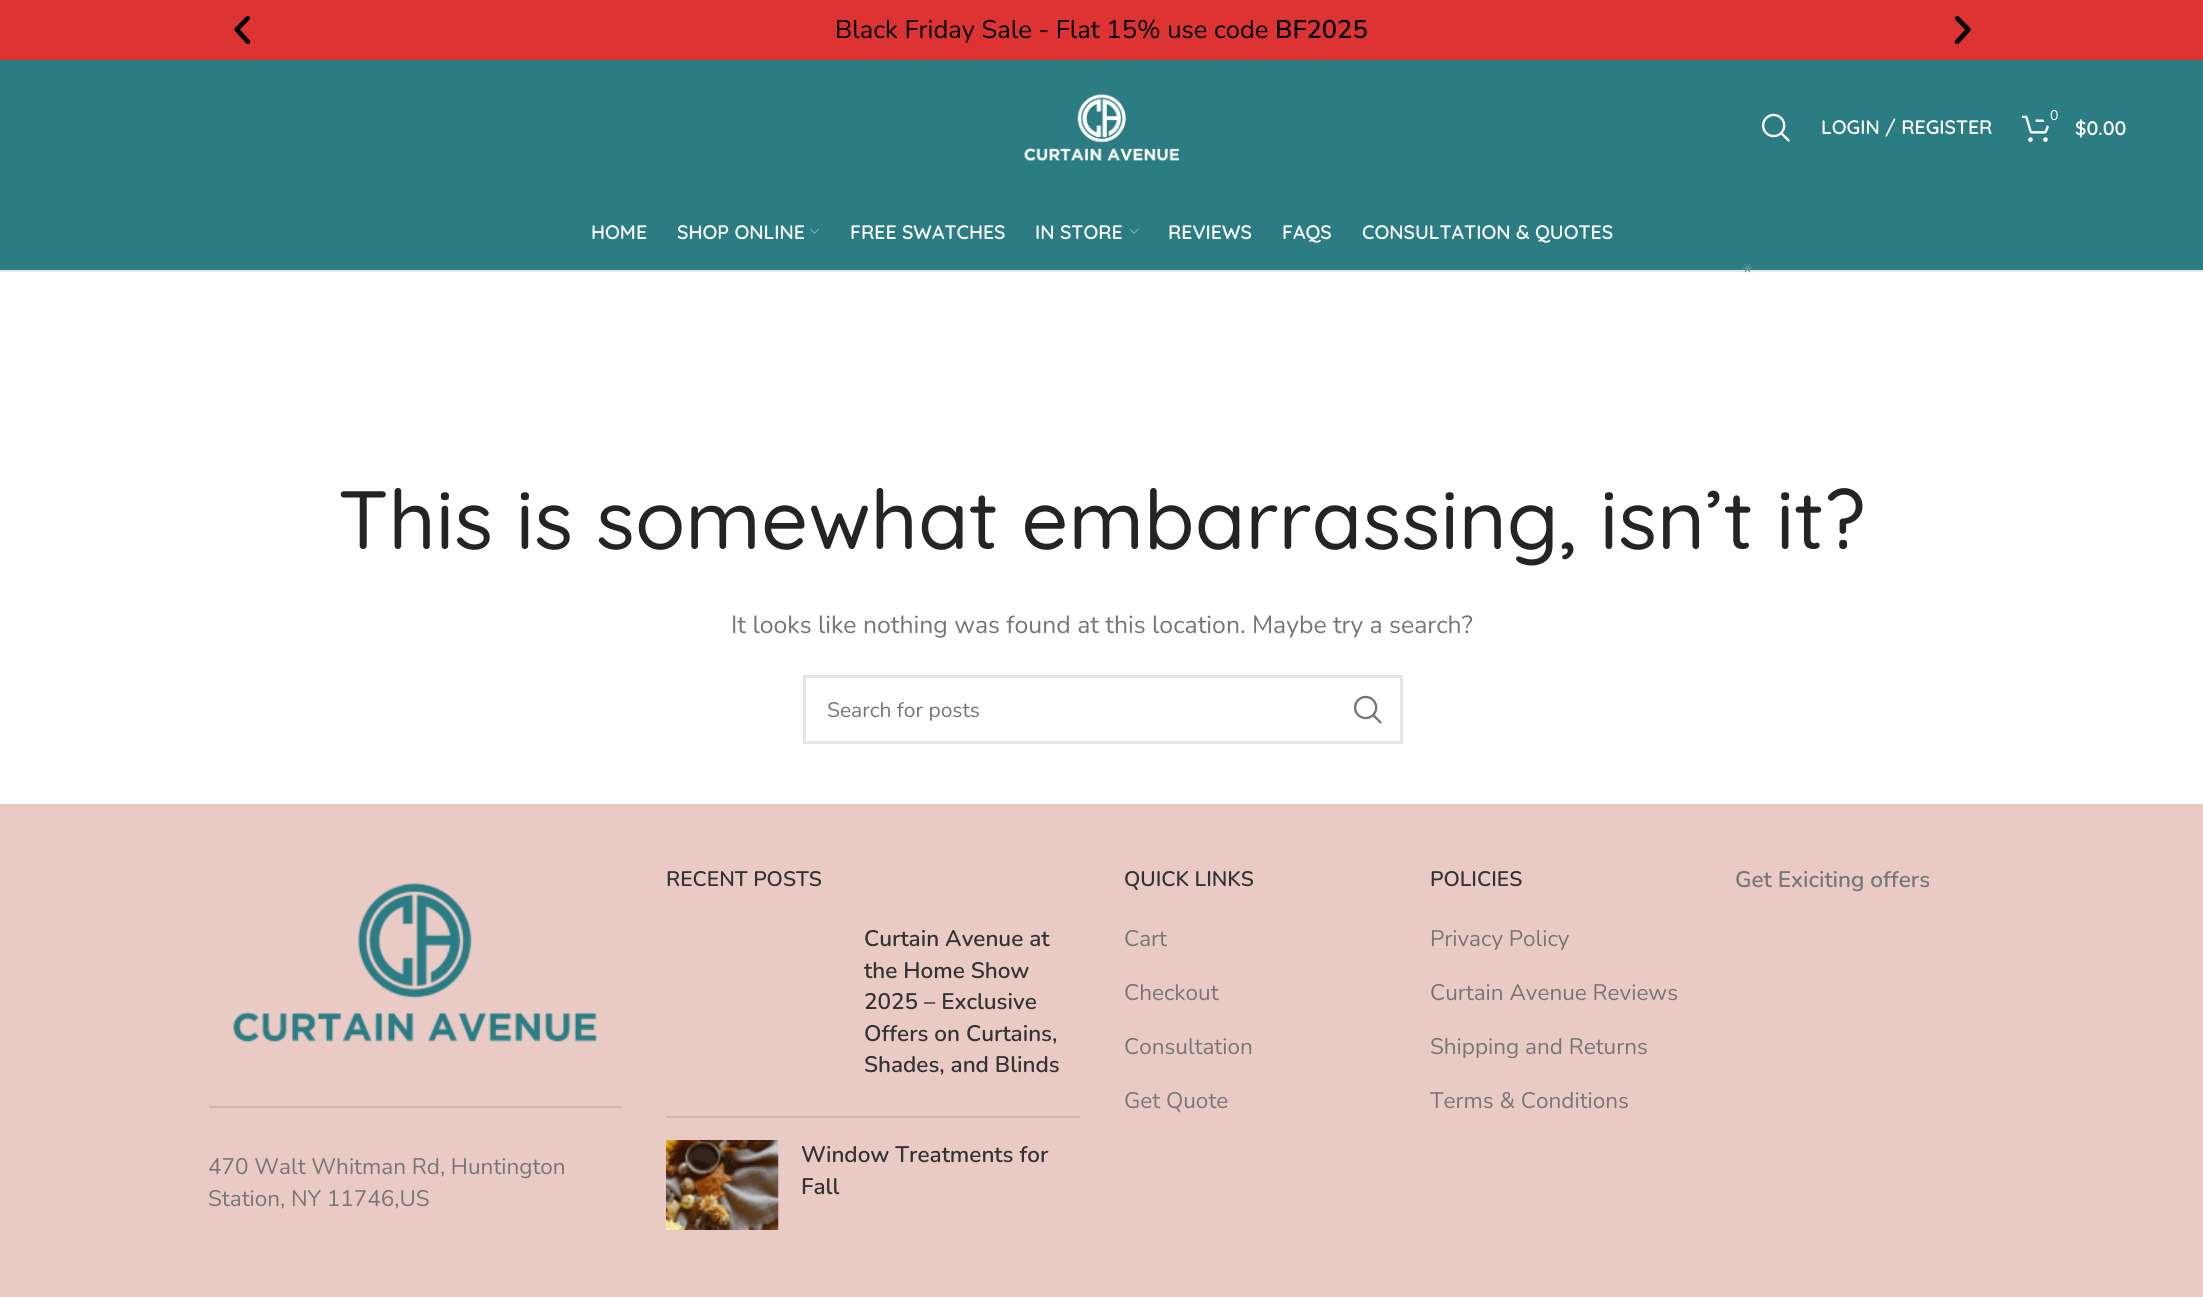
#include <cairo.h>
#include <math.h>
#include <stddef.h>

typedef struct { double x, y; const char *s; } line_t;

static void ink(cairo_t *ctx, unsigned color) {
    cairo_set_source_rgb(ctx, (color >> 16) / 255.0, (color >> 8 & 255) / 255.0, (color & 255) / 255.0);
}

static void paste(cairo_t *ctx, const char *path, double x, double y, double w, double h) {
    cairo_surface_t *image = cairo_image_surface_create_from_png(path);
    cairo_save(ctx);
    cairo_set_source_surface(ctx, image, x, y);
    cairo_rectangle(ctx, x, y, w, h);
    cairo_fill(ctx);
    cairo_restore(ctx);
    cairo_surface_destroy(image);
}

int main(void) {
    cairo_surface_t *surface = cairo_image_surface_create(CAIRO_FORMAT_RGB24, 2203, 1297);
    cairo_t *ctx = cairo_create(surface);
    cairo_font_options_t *options = cairo_font_options_create();
    cairo_font_options_set_hint_metrics(options, CAIRO_HINT_METRICS_OFF);
    cairo_font_options_set_hint_style(options, CAIRO_HINT_STYLE_NONE);
    cairo_set_font_options(ctx, options);
    cairo_set_miter_limit(ctx, 4);
    ink(ctx, 0xFFFFFF);
    cairo_paint(ctx);
    ink(ctx, 0xDD3333);
    cairo_rectangle(ctx, 0, 0, 2203, 60);
    cairo_fill(ctx);
    paste(ctx, "media/1.png", 234, 15, 17, 29);
    cairo_select_font_face(ctx, "Nunito", CAIRO_FONT_SLANT_NORMAL, CAIRO_FONT_WEIGHT_NORMAL);
    cairo_set_font_size(ctx, 25.5);
    ink(ctx, 0x000000);
    cairo_move_to(ctx, 835, 38);
    cairo_show_text(ctx, "Black Friday Sale - Flat 15% use code");
    cairo_select_font_face(ctx, "Nunito SemiBold", CAIRO_FONT_SLANT_NORMAL, CAIRO_FONT_WEIGHT_NORMAL);
    cairo_move_to(ctx, 1275, 38);
    cairo_show_text(ctx, "BF2025");
    paste(ctx, "media/2.png", 1954, 15, 17, 30);
    ink(ctx, 0x2C7C84);
    cairo_rectangle(ctx, 0, 60, 2203, 210);
    cairo_fill(ctx);
    paste(ctx, "media/3.png", 1024, 93, 156, 69);
    paste(ctx, "media/4.png", 1761, 113, 29, 29);
    cairo_select_font_face(ctx, "Quicksand SemiBold", CAIRO_FONT_SLANT_NORMAL, CAIRO_FONT_WEIGHT_NORMAL);
    cairo_set_font_size(ctx, 19.5);
    ink(ctx, 0xFFFFFF);
    cairo_move_to(ctx, 1821, 134);
    cairo_show_text(ctx, "LOGIN / REGISTER");
    paste(ctx, "media/5.png", 2022, 115, 28, 27);
    ink(ctx, 0x2C7C84);
    cairo_arc(ctx, 2054.5, 116.5, 11.5, 0, 2 * M_PI);
    cairo_fill(ctx);
    cairo_select_font_face(ctx, "Nunito", CAIRO_FONT_SLANT_NORMAL, CAIRO_FONT_WEIGHT_NORMAL);
    cairo_set_font_size(ctx, 14);
    ink(ctx, 0xFFFFFF);
    cairo_move_to(ctx, 2050, 120);
    cairo_show_text(ctx, "0");
    cairo_select_font_face(ctx, "Quicksand SemiBold", CAIRO_FONT_SLANT_NORMAL, CAIRO_FONT_WEIGHT_NORMAL);
    cairo_set_font_size(ctx, 19.5);
    cairo_move_to(ctx, 2075, 135);
    cairo_show_text(ctx, "$0.00");
    ink(ctx, 0xE6E6E6);
    cairo_rectangle(ctx, 0, 270, 2203, 2);
    cairo_fill(ctx);
    ink(ctx, 0xFFFFFF);
    cairo_move_to(ctx, 591, 239);
    cairo_show_text(ctx, "HOME");
    cairo_move_to(ctx, 677, 239);
    cairo_show_text(ctx, "SHOP ONLINE");
    paste(ctx, "media/6.png", 810, 228, 9, 6);
    cairo_move_to(ctx, 850, 239);
    cairo_show_text(ctx, "FREE SWATCHES");
    cairo_move_to(ctx, 1035, 239);
    cairo_show_text(ctx, "IN STORE");
    paste(ctx, "media/7.png", 1129, 228, 10, 6);
    {
        static const line_t items[] = {
            {1168, 239, "REVIEWS"},
            {1282, 239, "FAQS"},
            {1362, 239, "CONSULTATION & QUOTES"},
        };
        for (size_t i = 0; i < sizeof items / sizeof *items; i++) {
            cairo_move_to(ctx, items[i].x, items[i].y);
            cairo_show_text(ctx, items[i].s);
        }
    }
    cairo_select_font_face(ctx, "Nunito", CAIRO_FONT_SLANT_NORMAL, CAIRO_FONT_WEIGHT_NORMAL);
    cairo_set_font_size(ctx, 24);
    ink(ctx, 0x58959C);
    cairo_move_to(ctx, 1742, 281);
    cairo_show_text(ctx, "*");
    cairo_select_font_face(ctx, "Quicksand Medium", CAIRO_FONT_SLANT_NORMAL, CAIRO_FONT_WEIGHT_NORMAL);
    cairo_set_font_size(ctx, 82.5);
    ink(ctx, 0x242424);
    cairo_move_to(ctx, 338, 549);
    cairo_show_text(ctx, "This is somewhat embarrassing, isn’t it?");
    cairo_select_font_face(ctx, "Nunito", CAIRO_FONT_SLANT_NORMAL, CAIRO_FONT_WEIGHT_NORMAL);
    cairo_set_font_size(ctx, 24.75);
    ink(ctx, 0x767676);
    cairo_move_to(ctx, 731, 633);
    cairo_show_text(ctx, "It looks like nothing was found at this location. Maybe try a search?");
    cairo_rectangle(ctx, 804.5, 676.5, 597, 66);
    ink(ctx, 0xE6E6E6);
    cairo_set_line_width(ctx, 3);
    cairo_stroke(ctx);
    cairo_set_font_size(ctx, 21);
    ink(ctx, 0x767676);
    cairo_move_to(ctx, 827, 717);
    cairo_show_text(ctx, "Search for posts");
    paste(ctx, "media/8.png", 1353, 695, 29, 29);
    ink(ctx, 0xEACAC4);
    cairo_rectangle(ctx, 0, 804, 2203, 493);
    cairo_fill(ctx);
    cairo_select_font_face(ctx, "Nunito SemiBold", CAIRO_FONT_SLANT_NORMAL, CAIRO_FONT_WEIGHT_NORMAL);
    ink(ctx, 0x333333);
    cairo_move_to(ctx, 666, 886);
    cairo_show_text(ctx, "RECENT POSTS");
    ink(ctx, 0xD1B5AF);
    cairo_rectangle(ctx, 666, 1116, 414, 2);
    cairo_fill(ctx);
    cairo_set_font_size(ctx, 22.5);
    ink(ctx, 0x333333);
    {
        static const line_t items[] = {
            {864, 946, "Curtain Avenue at"},
            {864, 978, "the Home Show"},
            {864, 1009, "2025 – Exclusive"},
            {864, 1041, "Offers on Curtains,"},
            {864, 1072, "Shades, and Blinds"},
        };
        for (size_t i = 0; i < sizeof items / sizeof *items; i++) {
            cairo_move_to(ctx, items[i].x, items[i].y);
            cairo_show_text(ctx, items[i].s);
        }
    }
    paste(ctx, "media/9.png", 666, 1140, 113, 90);
    cairo_move_to(ctx, 801, 1162);
    cairo_show_text(ctx, "Window Treatments for");
    cairo_move_to(ctx, 801, 1194);
    cairo_show_text(ctx, "Fall");
    cairo_set_font_size(ctx, 21);
    cairo_move_to(ctx, 1124, 886);
    cairo_show_text(ctx, "QUICK LINKS");
    cairo_select_font_face(ctx, "Nunito", CAIRO_FONT_SLANT_NORMAL, CAIRO_FONT_WEIGHT_NORMAL);
    cairo_set_font_size(ctx, 22.5);
    ink(ctx, 0x767676);
    {
        static const line_t items[] = {
            {1124, 946, "Cart"},
            {1124, 1000, "Checkout"},
            {1124, 1054, "Consultation"},
            {1124, 1108, "Get Quote"},
        };
        for (size_t i = 0; i < sizeof items / sizeof *items; i++) {
            cairo_move_to(ctx, items[i].x, items[i].y);
            cairo_show_text(ctx, items[i].s);
        }
    }
    cairo_select_font_face(ctx, "Nunito SemiBold", CAIRO_FONT_SLANT_NORMAL, CAIRO_FONT_WEIGHT_NORMAL);
    cairo_set_font_size(ctx, 21);
    ink(ctx, 0x333333);
    cairo_move_to(ctx, 1430, 886);
    cairo_show_text(ctx, "POLICIES");
    cairo_select_font_face(ctx, "Nunito", CAIRO_FONT_SLANT_NORMAL, CAIRO_FONT_WEIGHT_NORMAL);
    cairo_set_font_size(ctx, 22.5);
    ink(ctx, 0x767676);
    {
        static const line_t items[] = {
            {1430, 946, "Privacy Policy"},
            {1430, 1000, "Curtain Avenue Reviews"},
            {1430, 1054, "Shipping and Returns"},
            {1430, 1108, "Terms & Conditions"},
        };
        for (size_t i = 0; i < sizeof items / sizeof *items; i++) {
            cairo_move_to(ctx, items[i].x, items[i].y);
            cairo_show_text(ctx, items[i].s);
        }
    }
    cairo_select_font_face(ctx, "Nunito SemiBold", CAIRO_FONT_SLANT_NORMAL, CAIRO_FONT_WEIGHT_NORMAL);
    cairo_move_to(ctx, 1735, 887);
    cairo_show_text(ctx, "Get Exiciting offers");
    ink(ctx, 0xD1B5AF);
    cairo_rectangle(ctx, 209, 1106, 412, 2);
    cairo_fill(ctx);
    paste(ctx, "media/10.png", 233, 883, 364, 160);
    cairo_select_font_face(ctx, "Nunito", CAIRO_FONT_SLANT_NORMAL, CAIRO_FONT_WEIGHT_NORMAL);
    ink(ctx, 0x767676);
    cairo_move_to(ctx, 208, 1174);
    cairo_show_text(ctx, "470 Walt Whitman Rd, Huntington");
    cairo_move_to(ctx, 208, 1206);
    cairo_show_text(ctx, "Station, NY 11746,US");
    cairo_surface_write_to_png(surface, "image.png");
    cairo_font_options_destroy(options);
    cairo_destroy(ctx);
    cairo_surface_destroy(surface);
    return 0;
}
